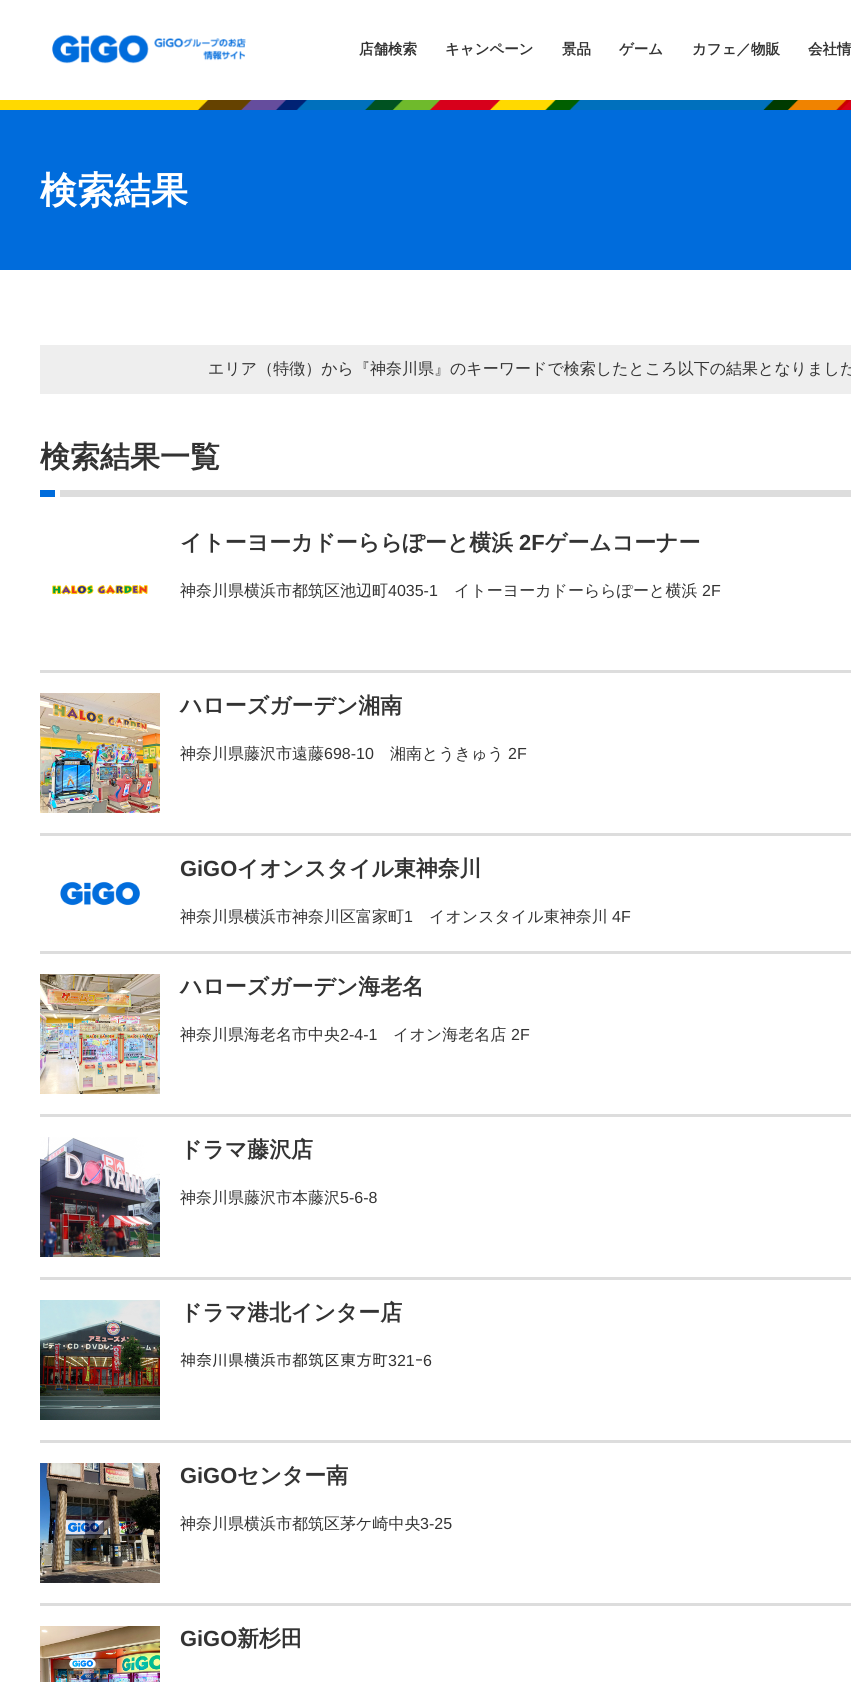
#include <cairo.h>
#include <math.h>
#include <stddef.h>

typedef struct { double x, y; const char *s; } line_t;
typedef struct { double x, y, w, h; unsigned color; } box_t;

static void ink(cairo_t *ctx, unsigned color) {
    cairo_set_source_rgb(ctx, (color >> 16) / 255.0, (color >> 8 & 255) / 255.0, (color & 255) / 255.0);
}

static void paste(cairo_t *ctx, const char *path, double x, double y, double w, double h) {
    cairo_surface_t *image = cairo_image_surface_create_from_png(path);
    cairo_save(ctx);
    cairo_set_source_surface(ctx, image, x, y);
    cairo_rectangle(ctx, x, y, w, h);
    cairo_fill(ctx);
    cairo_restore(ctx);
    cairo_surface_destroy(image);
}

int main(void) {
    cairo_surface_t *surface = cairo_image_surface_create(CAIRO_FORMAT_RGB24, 851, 1682);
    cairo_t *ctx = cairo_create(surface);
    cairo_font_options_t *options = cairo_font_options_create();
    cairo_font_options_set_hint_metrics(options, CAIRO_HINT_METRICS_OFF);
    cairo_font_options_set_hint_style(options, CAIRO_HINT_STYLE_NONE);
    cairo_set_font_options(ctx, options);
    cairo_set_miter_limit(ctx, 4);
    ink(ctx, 0xFFFFFF);
    cairo_paint(ctx);
    paste(ctx, "media/1.png", 52, 34, 194, 30);
    cairo_select_font_face(ctx, "WenQuanYi Zen Hei", CAIRO_FONT_SLANT_NORMAL, CAIRO_FONT_WEIGHT_BOLD);
    cairo_set_font_size(ctx, 14.5);
    ink(ctx, 0x333333);
    {
        static const line_t items[] = {
            {359, 54, "店舗検索"},
            {445, 54, "キャンペーン"},
            {562, 54, "景品"},
            {619, 54, "ゲーム"},
            {692, 54, "カフェ／物販"},
            {808, 54, "会社情"},
        };
        for (size_t i = 0; i < sizeof items / sizeof *items; i++) {
            cairo_move_to(ctx, items[i].x, items[i].y);
            cairo_show_text(ctx, items[i].s);
        }
    }
    paste(ctx, "media/2.png", 0, 100, 851, 10);
    ink(ctx, 0x006CDC);
    cairo_rectangle(ctx, 0, 110, 851, 160);
    cairo_fill(ctx);
    cairo_set_font_size(ctx, 37);
    ink(ctx, 0xFFFFFF);
    cairo_move_to(ctx, 40, 203);
    cairo_show_text(ctx, "検索結果");
    ink(ctx, 0xEEEEEE);
    cairo_rectangle(ctx, 40, 345, 811, 49);
    cairo_fill(ctx);
    cairo_select_font_face(ctx, "WenQuanYi Zen Hei Medium", CAIRO_FONT_SLANT_NORMAL, CAIRO_FONT_WEIGHT_NORMAL);
    cairo_set_font_size(ctx, 16);
    ink(ctx, 0x333333);
    cairo_move_to(ctx, 208, 374);
    cairo_show_text(ctx, "エリア（特徴）から『神奈川県』のキーワードで検索したところ以下の結果となりました");
    ink(ctx, 0xDDDDDD);
    cairo_rectangle(ctx, 60, 490, 791, 7);
    cairo_fill(ctx);
    cairo_select_font_face(ctx, "WenQuanYi Zen Hei", CAIRO_FONT_SLANT_NORMAL, CAIRO_FONT_WEIGHT_BOLD);
    cairo_set_font_size(ctx, 30);
    ink(ctx, 0x333333);
    cairo_move_to(ctx, 40, 467);
    cairo_show_text(ctx, "検索結果一覧");
    {
        static const box_t items[] = {
            {40, 490, 20, 7, 0x006CDC},
            {55, 490, 5, 7, 0xFFFFFF},
            {40, 670, 811, 3, 0xDDDDDD},
        };
        for (size_t i = 0; i < sizeof items / sizeof *items; i++) {
            ink(ctx, items[i].color);
            cairo_rectangle(ctx, items[i].x, items[i].y, items[i].w, items[i].h);
            cairo_fill(ctx);
        }
    }
    paste(ctx, "media/3.png", 52, 584, 96, 11);
    cairo_set_font_size(ctx, 21.9);
    ink(ctx, 0x333333);
    cairo_move_to(ctx, 180, 550);
    cairo_show_text(ctx, "イトーヨーカドーららぽーと横浜");
    cairo_select_font_face(ctx, "Liberation Sans", CAIRO_FONT_SLANT_NORMAL, CAIRO_FONT_WEIGHT_BOLD);
    cairo_move_to(ctx, 519, 550);
    cairo_show_text(ctx, "2F");
    cairo_select_font_face(ctx, "WenQuanYi Zen Hei", CAIRO_FONT_SLANT_NORMAL, CAIRO_FONT_WEIGHT_BOLD);
    cairo_move_to(ctx, 545, 550);
    cairo_show_text(ctx, "ゲームコーナー");
    cairo_select_font_face(ctx, "WenQuanYi Zen Hei Medium", CAIRO_FONT_SLANT_NORMAL, CAIRO_FONT_WEIGHT_NORMAL);
    cairo_set_font_size(ctx, 16);
    cairo_move_to(ctx, 180, 596);
    cairo_show_text(ctx, "神奈川県横浜市都筑区池辺町");
    cairo_select_font_face(ctx, "Liberation Sans", CAIRO_FONT_SLANT_NORMAL, CAIRO_FONT_WEIGHT_NORMAL);
    cairo_move_to(ctx, 388, 596);
    cairo_show_text(ctx, "4035-1");
    cairo_select_font_face(ctx, "WenQuanYi Zen Hei Medium", CAIRO_FONT_SLANT_NORMAL, CAIRO_FONT_WEIGHT_NORMAL);
    cairo_move_to(ctx, 454, 596);
    cairo_show_text(ctx, "イトーヨーカドーららぽーと横浜");
    cairo_select_font_face(ctx, "Liberation Sans", CAIRO_FONT_SLANT_NORMAL, CAIRO_FONT_WEIGHT_NORMAL);
    cairo_move_to(ctx, 702, 596);
    cairo_show_text(ctx, "2F");
    ink(ctx, 0xDDDDDD);
    cairo_rectangle(ctx, 40, 833, 811, 3);
    cairo_fill(ctx);
    paste(ctx, "media/4.png", 40, 693, 120, 120);
    cairo_select_font_face(ctx, "WenQuanYi Zen Hei", CAIRO_FONT_SLANT_NORMAL, CAIRO_FONT_WEIGHT_BOLD);
    cairo_set_font_size(ctx, 21.9);
    ink(ctx, 0x333333);
    cairo_move_to(ctx, 180, 713);
    cairo_show_text(ctx, "ハローズガーデン湘南");
    cairo_select_font_face(ctx, "WenQuanYi Zen Hei Medium", CAIRO_FONT_SLANT_NORMAL, CAIRO_FONT_WEIGHT_NORMAL);
    cairo_set_font_size(ctx, 16);
    cairo_move_to(ctx, 180, 759);
    cairo_show_text(ctx, "神奈川県藤沢市遠藤");
    cairo_select_font_face(ctx, "Liberation Sans", CAIRO_FONT_SLANT_NORMAL, CAIRO_FONT_WEIGHT_NORMAL);
    cairo_move_to(ctx, 324, 759);
    cairo_show_text(ctx, "698-10");
    cairo_select_font_face(ctx, "WenQuanYi Zen Hei Medium", CAIRO_FONT_SLANT_NORMAL, CAIRO_FONT_WEIGHT_NORMAL);
    cairo_move_to(ctx, 390, 759);
    cairo_show_text(ctx, "湘南とうきゅう");
    cairo_select_font_face(ctx, "Liberation Sans", CAIRO_FONT_SLANT_NORMAL, CAIRO_FONT_WEIGHT_NORMAL);
    cairo_move_to(ctx, 508, 759);
    cairo_show_text(ctx, "2F");
    ink(ctx, 0xDDDDDD);
    cairo_rectangle(ctx, 40, 951, 811, 3);
    cairo_fill(ctx);
    paste(ctx, "media/5.png", 60, 881, 80, 25);
    cairo_select_font_face(ctx, "Liberation Sans", CAIRO_FONT_SLANT_NORMAL, CAIRO_FONT_WEIGHT_BOLD);
    cairo_set_font_size(ctx, 21.9);
    ink(ctx, 0x333333);
    cairo_move_to(ctx, 180, 876);
    cairo_show_text(ctx, "GiGO");
    cairo_select_font_face(ctx, "WenQuanYi Zen Hei", CAIRO_FONT_SLANT_NORMAL, CAIRO_FONT_WEIGHT_BOLD);
    cairo_move_to(ctx, 237, 876);
    cairo_show_text(ctx, "イオンスタイル東神奈川");
    cairo_select_font_face(ctx, "WenQuanYi Zen Hei Medium", CAIRO_FONT_SLANT_NORMAL, CAIRO_FONT_WEIGHT_NORMAL);
    cairo_set_font_size(ctx, 16);
    cairo_move_to(ctx, 180, 922);
    cairo_show_text(ctx, "神奈川県横浜市神奈川区富家町");
    cairo_select_font_face(ctx, "Liberation Sans", CAIRO_FONT_SLANT_NORMAL, CAIRO_FONT_WEIGHT_NORMAL);
    cairo_move_to(ctx, 404, 922);
    cairo_show_text(ctx, "1");
    cairo_select_font_face(ctx, "WenQuanYi Zen Hei Medium", CAIRO_FONT_SLANT_NORMAL, CAIRO_FONT_WEIGHT_NORMAL);
    cairo_move_to(ctx, 429, 922);
    cairo_show_text(ctx, "イオンスタイル東神奈川");
    cairo_select_font_face(ctx, "Liberation Sans", CAIRO_FONT_SLANT_NORMAL, CAIRO_FONT_WEIGHT_NORMAL);
    cairo_move_to(ctx, 612, 922);
    cairo_show_text(ctx, "4F");
    ink(ctx, 0xDDDDDD);
    cairo_rectangle(ctx, 40, 1114, 811, 3);
    cairo_fill(ctx);
    paste(ctx, "media/6.png", 40, 974, 120, 120);
    cairo_select_font_face(ctx, "WenQuanYi Zen Hei", CAIRO_FONT_SLANT_NORMAL, CAIRO_FONT_WEIGHT_BOLD);
    cairo_set_font_size(ctx, 21.9);
    ink(ctx, 0x333333);
    cairo_move_to(ctx, 180, 994);
    cairo_show_text(ctx, "ハローズガーデン海老名");
    cairo_select_font_face(ctx, "WenQuanYi Zen Hei Medium", CAIRO_FONT_SLANT_NORMAL, CAIRO_FONT_WEIGHT_NORMAL);
    cairo_set_font_size(ctx, 16);
    cairo_move_to(ctx, 180, 1040);
    cairo_show_text(ctx, "神奈川県海老名市中央");
    cairo_select_font_face(ctx, "Liberation Sans", CAIRO_FONT_SLANT_NORMAL, CAIRO_FONT_WEIGHT_NORMAL);
    cairo_move_to(ctx, 340, 1040);
    cairo_show_text(ctx, "2-4-1");
    cairo_select_font_face(ctx, "WenQuanYi Zen Hei Medium", CAIRO_FONT_SLANT_NORMAL, CAIRO_FONT_WEIGHT_NORMAL);
    cairo_move_to(ctx, 393, 1040);
    cairo_show_text(ctx, "イオン海老名店");
    cairo_select_font_face(ctx, "Liberation Sans", CAIRO_FONT_SLANT_NORMAL, CAIRO_FONT_WEIGHT_NORMAL);
    cairo_move_to(ctx, 511, 1040);
    cairo_show_text(ctx, "2F");
    ink(ctx, 0xDDDDDD);
    cairo_rectangle(ctx, 40, 1277, 811, 3);
    cairo_fill(ctx);
    paste(ctx, "media/7.png", 40, 1137, 120, 120);
    cairo_select_font_face(ctx, "WenQuanYi Zen Hei", CAIRO_FONT_SLANT_NORMAL, CAIRO_FONT_WEIGHT_BOLD);
    cairo_set_font_size(ctx, 21.9);
    ink(ctx, 0x333333);
    cairo_move_to(ctx, 180, 1157);
    cairo_show_text(ctx, "ドラマ藤沢店");
    cairo_select_font_face(ctx, "WenQuanYi Zen Hei Medium", CAIRO_FONT_SLANT_NORMAL, CAIRO_FONT_WEIGHT_NORMAL);
    cairo_set_font_size(ctx, 16);
    cairo_move_to(ctx, 180, 1203);
    cairo_show_text(ctx, "神奈川県藤沢市本藤沢");
    cairo_select_font_face(ctx, "Liberation Sans", CAIRO_FONT_SLANT_NORMAL, CAIRO_FONT_WEIGHT_NORMAL);
    cairo_move_to(ctx, 340, 1203);
    cairo_show_text(ctx, "5-6-8");
    ink(ctx, 0xDDDDDD);
    cairo_rectangle(ctx, 40, 1440, 811, 3);
    cairo_fill(ctx);
    paste(ctx, "media/8.png", 40, 1300, 120, 120);
    cairo_select_font_face(ctx, "WenQuanYi Zen Hei", CAIRO_FONT_SLANT_NORMAL, CAIRO_FONT_WEIGHT_BOLD);
    cairo_set_font_size(ctx, 21.9);
    ink(ctx, 0x333333);
    cairo_move_to(ctx, 180, 1320);
    cairo_show_text(ctx, "ドラマ港北インター店");
    cairo_select_font_face(ctx, "IPAPGothic", CAIRO_FONT_SLANT_NORMAL, CAIRO_FONT_WEIGHT_NORMAL);
    cairo_set_font_size(ctx, 16);
    cairo_move_to(ctx, 180, 1366);
    cairo_show_text(ctx, "神奈川県横浜市都筑区東方町");
    cairo_select_font_face(ctx, "Liberation Sans", CAIRO_FONT_SLANT_NORMAL, CAIRO_FONT_WEIGHT_NORMAL);
    cairo_move_to(ctx, 388, 1366);
    cairo_show_text(ctx, "321");
    cairo_select_font_face(ctx, "IPAPGothic", CAIRO_FONT_SLANT_NORMAL, CAIRO_FONT_WEIGHT_NORMAL);
    cairo_move_to(ctx, 415, 1366);
    cairo_show_text(ctx, "ｰ");
    cairo_select_font_face(ctx, "Liberation Sans", CAIRO_FONT_SLANT_NORMAL, CAIRO_FONT_WEIGHT_NORMAL);
    cairo_move_to(ctx, 423, 1366);
    cairo_show_text(ctx, "6");
    ink(ctx, 0xDDDDDD);
    cairo_rectangle(ctx, 40, 1603, 811, 3);
    cairo_fill(ctx);
    paste(ctx, "media/9.png", 40, 1463, 120, 120);
    cairo_select_font_face(ctx, "Liberation Sans", CAIRO_FONT_SLANT_NORMAL, CAIRO_FONT_WEIGHT_BOLD);
    cairo_set_font_size(ctx, 21.9);
    ink(ctx, 0x333333);
    cairo_move_to(ctx, 180, 1483);
    cairo_show_text(ctx, "GiGO");
    cairo_select_font_face(ctx, "WenQuanYi Zen Hei", CAIRO_FONT_SLANT_NORMAL, CAIRO_FONT_WEIGHT_BOLD);
    cairo_move_to(ctx, 237, 1483);
    cairo_show_text(ctx, "センター南");
    cairo_select_font_face(ctx, "WenQuanYi Zen Hei Medium", CAIRO_FONT_SLANT_NORMAL, CAIRO_FONT_WEIGHT_NORMAL);
    cairo_set_font_size(ctx, 16);
    cairo_move_to(ctx, 180, 1529);
    cairo_show_text(ctx, "神奈川県横浜市都筑区茅ケ崎中央");
    cairo_select_font_face(ctx, "Liberation Sans", CAIRO_FONT_SLANT_NORMAL, CAIRO_FONT_WEIGHT_NORMAL);
    cairo_move_to(ctx, 420, 1529);
    cairo_show_text(ctx, "3-25");
    paste(ctx, "media/10.png", 40, 1626, 120, 56);
    cairo_select_font_face(ctx, "Liberation Sans", CAIRO_FONT_SLANT_NORMAL, CAIRO_FONT_WEIGHT_BOLD);
    cairo_set_font_size(ctx, 21.9);
    cairo_move_to(ctx, 180, 1646);
    cairo_show_text(ctx, "GiGO");
    cairo_select_font_face(ctx, "WenQuanYi Zen Hei", CAIRO_FONT_SLANT_NORMAL, CAIRO_FONT_WEIGHT_BOLD);
    cairo_move_to(ctx, 237, 1646);
    cairo_show_text(ctx, "新杉田");
    cairo_surface_write_to_png(surface, "image.png");
    cairo_font_options_destroy(options);
    cairo_destroy(ctx);
    cairo_surface_destroy(surface);
    return 0;
}
